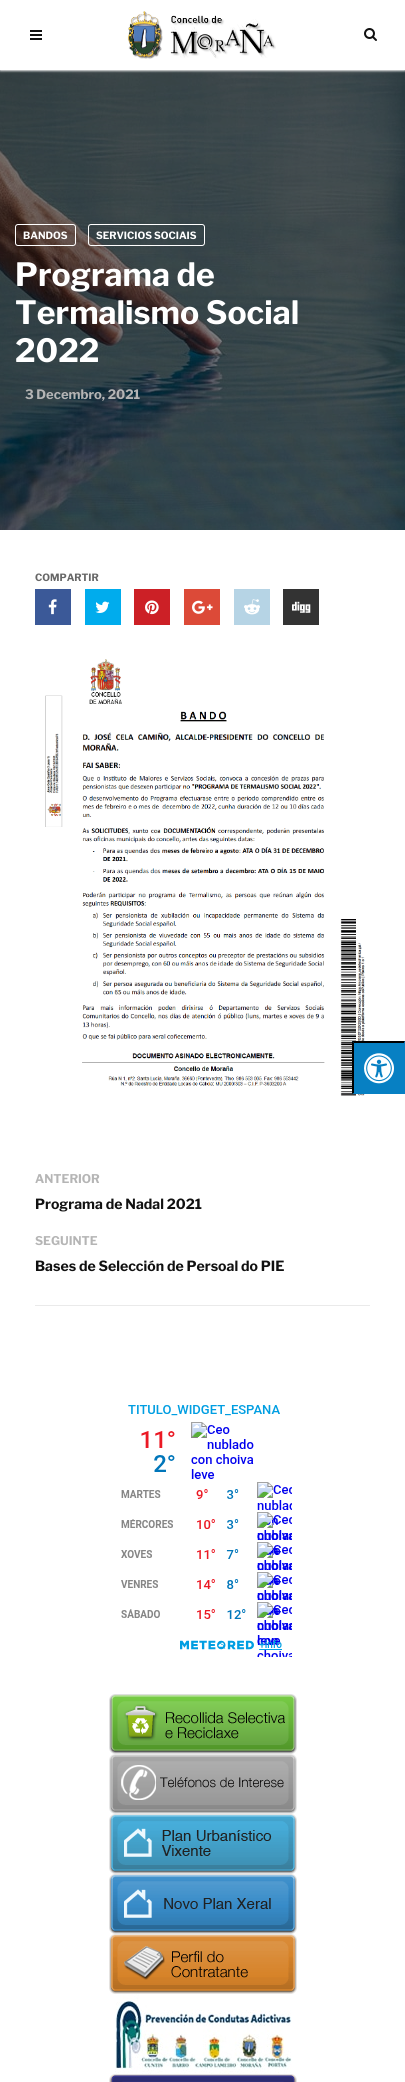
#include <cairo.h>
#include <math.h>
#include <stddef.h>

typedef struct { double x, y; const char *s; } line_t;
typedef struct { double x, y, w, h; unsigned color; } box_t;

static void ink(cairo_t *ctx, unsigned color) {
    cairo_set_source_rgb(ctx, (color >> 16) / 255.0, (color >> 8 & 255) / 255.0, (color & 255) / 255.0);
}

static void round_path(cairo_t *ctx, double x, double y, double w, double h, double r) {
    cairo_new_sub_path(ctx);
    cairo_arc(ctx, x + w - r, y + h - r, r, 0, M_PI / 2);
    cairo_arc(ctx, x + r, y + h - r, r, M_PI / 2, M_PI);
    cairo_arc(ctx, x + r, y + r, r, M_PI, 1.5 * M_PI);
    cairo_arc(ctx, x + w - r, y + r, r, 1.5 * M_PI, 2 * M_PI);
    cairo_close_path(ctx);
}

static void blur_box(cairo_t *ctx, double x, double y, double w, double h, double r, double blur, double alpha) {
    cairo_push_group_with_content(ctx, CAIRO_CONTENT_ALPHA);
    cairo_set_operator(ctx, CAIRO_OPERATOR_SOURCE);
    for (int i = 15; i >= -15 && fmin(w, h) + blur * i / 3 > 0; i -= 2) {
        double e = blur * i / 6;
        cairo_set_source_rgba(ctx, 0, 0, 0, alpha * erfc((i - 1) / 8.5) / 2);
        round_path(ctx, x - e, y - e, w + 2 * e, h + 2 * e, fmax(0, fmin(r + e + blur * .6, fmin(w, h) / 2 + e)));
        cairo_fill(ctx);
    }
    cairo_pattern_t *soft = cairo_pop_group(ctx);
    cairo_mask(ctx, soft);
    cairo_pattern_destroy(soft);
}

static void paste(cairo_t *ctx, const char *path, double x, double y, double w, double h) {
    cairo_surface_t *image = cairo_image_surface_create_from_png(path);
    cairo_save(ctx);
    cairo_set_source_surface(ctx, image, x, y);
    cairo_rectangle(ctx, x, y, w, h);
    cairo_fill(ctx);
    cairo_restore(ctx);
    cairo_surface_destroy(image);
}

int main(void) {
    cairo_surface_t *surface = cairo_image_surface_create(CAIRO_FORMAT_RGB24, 405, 2082);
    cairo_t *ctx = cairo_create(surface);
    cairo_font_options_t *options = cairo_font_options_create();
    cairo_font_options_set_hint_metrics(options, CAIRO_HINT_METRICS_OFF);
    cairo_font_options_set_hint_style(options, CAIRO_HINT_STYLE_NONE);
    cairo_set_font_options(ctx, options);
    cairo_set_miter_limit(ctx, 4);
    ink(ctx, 0xFFFFFF);
    cairo_paint(ctx);
    paste(ctx, "media/3.png", 0, 70, 405, 460);
    ink(ctx, 0xEAEAEA);
    blur_box(ctx, 0, 1, 405, 70, 0, 1, 1);
    {
        static const box_t items[] = {
            {0, 0, 405, 70, 0xFFFFFF},
            {30, 30, 12, 2, 0x111111},
            {30, 34, 12, 2, 0x111111},
            {30, 38, 12, 2, 0x111111},
        };
        for (size_t i = 0; i < sizeof items / sizeof *items; i++) {
            ink(ctx, items[i].color);
            cairo_rectangle(ctx, items[i].x, items[i].y, items[i].w, items[i].h);
            cairo_fill(ctx);
        }
    }
    paste(ctx, "media/1.png", 127, 11, 149, 48);
    paste(ctx, "media/2.png", 364, 28, 13, 13);
    round_path(ctx, 15.5, 224.5, 60, 21, 2.5);
    ink(ctx, 0xFFFFFF);
    cairo_set_line_width(ctx, 1);
    cairo_stroke(ctx);
    cairo_select_font_face(ctx, "Libre Franklin", CAIRO_FONT_SLANT_NORMAL, CAIRO_FONT_WEIGHT_BOLD);
    cairo_set_font_size(ctx, 10);
    cairo_move_to(ctx, 23, 239);
    cairo_show_text(ctx, "BANDOS");
    round_path(ctx, 88.5, 224.5, 116, 21, 2.5);
    cairo_stroke(ctx);
    cairo_move_to(ctx, 96, 239);
    cairo_show_text(ctx, "SERVICIOS SOCIAIS");
    cairo_set_font_size(ctx, 32);
    {
        static const line_t items[] = {
            {15, 286, "Programa de"},
            {15, 324, "Termalismo Social"},
            {15, 362, "2022"},
        };
        for (size_t i = 0; i < sizeof items / sizeof *items; i++) {
            cairo_move_to(ctx, items[i].x, items[i].y);
            cairo_show_text(ctx, items[i].s);
        }
    }
    cairo_set_font_size(ctx, 13);
    ink(ctx, 0xB5B5B5);
    cairo_move_to(ctx, 25, 399);
    cairo_show_text(ctx, "3 Decembro, 2021");
    cairo_set_font_size(ctx, 10);
    ink(ctx, 0x666666);
    cairo_move_to(ctx, 35, 581);
    cairo_show_text(ctx, "COMPARTIR");
    ink(ctx, 0x3B5998);
    cairo_rectangle(ctx, 35, 589, 36, 36);
    cairo_fill(ctx);
    paste(ctx, "media/4.png", 48, 599, 9, 16);
    ink(ctx, 0x00ACED);
    cairo_rectangle(ctx, 85, 589, 36, 36);
    cairo_fill(ctx);
    paste(ctx, "media/5.png", 95, 601, 15, 12);
    ink(ctx, 0xCC2026);
    cairo_rectangle(ctx, 134, 589, 36, 36);
    cairo_fill(ctx);
    paste(ctx, "media/6.png", 145, 600, 14, 15);
    ink(ctx, 0xDC4A38);
    cairo_rectangle(ctx, 184, 589, 36, 36);
    cairo_fill(ctx);
    paste(ctx, "media/7.png", 192, 600, 21, 14);
    ink(ctx, 0xB6D4E5);
    cairo_rectangle(ctx, 234, 589, 36, 36);
    cairo_fill(ctx);
    paste(ctx, "media/8.png", 244, 599, 16, 16);
    ink(ctx, 0x333333);
    cairo_rectangle(ctx, 283, 589, 36, 36);
    cairo_fill(ctx);
    paste(ctx, "media/9.png", 292, 601, 19, 12);
    paste(ctx, "media/10.png", 45, 659, 321, 437);
    cairo_set_font_size(ctx, 12);
    ink(ctx, 0xB5B5B5);
    cairo_move_to(ctx, 35, 1183);
    cairo_show_text(ctx, "ANTERIOR");
    cairo_set_font_size(ctx, 14);
    ink(ctx, 0x111111);
    cairo_move_to(ctx, 35, 1209);
    cairo_show_text(ctx, "Programa de Nadal 2021");
    cairo_set_font_size(ctx, 12);
    ink(ctx, 0xB5B5B5);
    cairo_move_to(ctx, 35, 1245);
    cairo_show_text(ctx, "SEGUINTE");
    cairo_set_font_size(ctx, 14);
    ink(ctx, 0x111111);
    cairo_move_to(ctx, 35, 1271);
    cairo_show_text(ctx, "Bases de Selección de Persoal do PIE");
    ink(ctx, 0xEAEAEA);
    cairo_rectangle(ctx, 35, 1305, 335, 1);
    cairo_fill(ctx);
    paste(ctx, "media/11.png", 121, 1405, 171, 252);
    paste(ctx, "media/12.png", 109, 1694, 188, 60);
    paste(ctx, "media/13.png", 109, 1754, 188, 60);
    paste(ctx, "media/14.png", 109, 1814, 188, 60);
    paste(ctx, "media/15.png", 109, 1874, 188, 60);
    paste(ctx, "media/16.png", 109, 1934, 188, 60);
    paste(ctx, "media/17.png", 115, 1994, 177, 80);
    paste(ctx, "media/18.png", 109, 2074, 188, 8);
    ink(ctx, 0x0780C3);
    cairo_rectangle(ctx, 352, 1041, 53, 53);
    cairo_fill(ctx);
    ink(ctx, 0x000000);
    cairo_new_path(ctx);
    cairo_move_to(ctx, 352, 1041);
    cairo_line_to(ctx, 405, 1041);
    cairo_line_to(ctx, 404, 1043);
    cairo_line_to(ctx, 354, 1043);
    cairo_close_path(ctx);
    cairo_fill(ctx);
    ink(ctx, 0x0780C3);
    cairo_new_path(ctx);
    cairo_move_to(ctx, 405, 1041);
    cairo_line_to(ctx, 405, 1094);
    cairo_line_to(ctx, 404, 1093);
    cairo_line_to(ctx, 404, 1043);
    cairo_close_path(ctx);
    cairo_fill(ctx);
    ink(ctx, 0x000000);
    cairo_new_path(ctx);
    cairo_move_to(ctx, 352, 1094);
    cairo_line_to(ctx, 352, 1041);
    cairo_line_to(ctx, 354, 1043);
    cairo_line_to(ctx, 354, 1093);
    cairo_close_path(ctx);
    cairo_fill(ctx);
    paste(ctx, "media/19.png", 364, 1053, 30, 31);
    cairo_surface_write_to_png(surface, "image.png");
    cairo_font_options_destroy(options);
    cairo_destroy(ctx);
    cairo_surface_destroy(surface);
    return 0;
}
